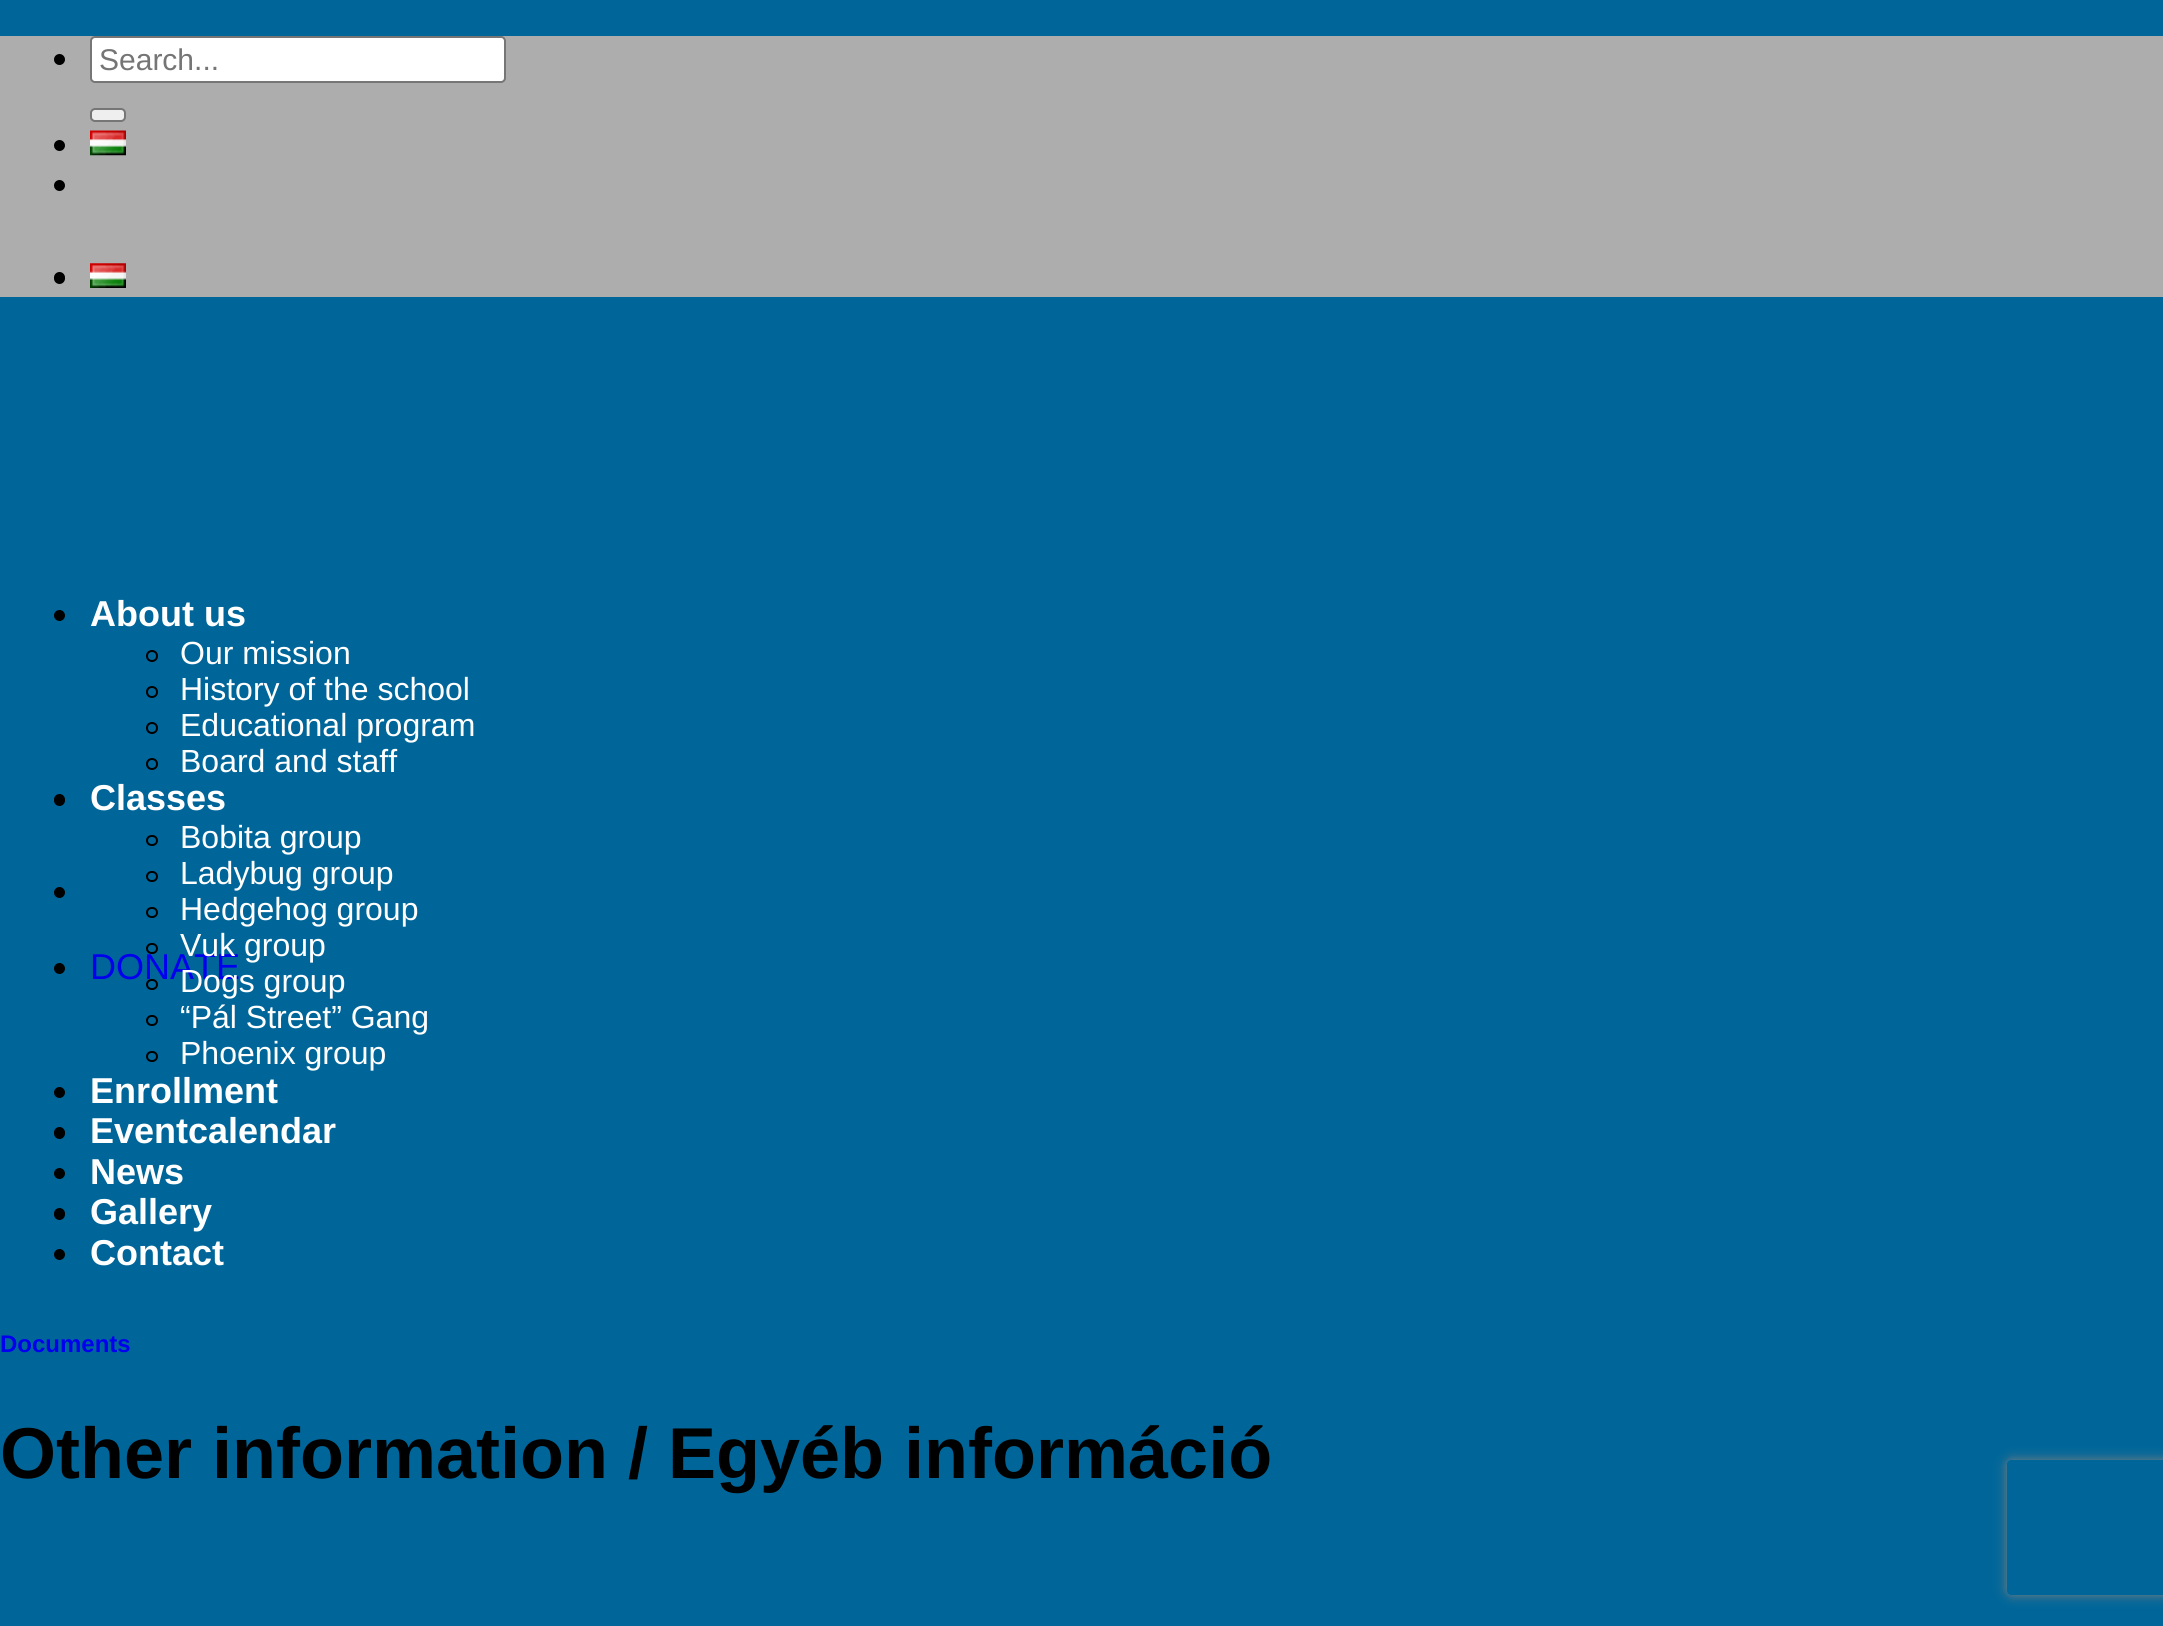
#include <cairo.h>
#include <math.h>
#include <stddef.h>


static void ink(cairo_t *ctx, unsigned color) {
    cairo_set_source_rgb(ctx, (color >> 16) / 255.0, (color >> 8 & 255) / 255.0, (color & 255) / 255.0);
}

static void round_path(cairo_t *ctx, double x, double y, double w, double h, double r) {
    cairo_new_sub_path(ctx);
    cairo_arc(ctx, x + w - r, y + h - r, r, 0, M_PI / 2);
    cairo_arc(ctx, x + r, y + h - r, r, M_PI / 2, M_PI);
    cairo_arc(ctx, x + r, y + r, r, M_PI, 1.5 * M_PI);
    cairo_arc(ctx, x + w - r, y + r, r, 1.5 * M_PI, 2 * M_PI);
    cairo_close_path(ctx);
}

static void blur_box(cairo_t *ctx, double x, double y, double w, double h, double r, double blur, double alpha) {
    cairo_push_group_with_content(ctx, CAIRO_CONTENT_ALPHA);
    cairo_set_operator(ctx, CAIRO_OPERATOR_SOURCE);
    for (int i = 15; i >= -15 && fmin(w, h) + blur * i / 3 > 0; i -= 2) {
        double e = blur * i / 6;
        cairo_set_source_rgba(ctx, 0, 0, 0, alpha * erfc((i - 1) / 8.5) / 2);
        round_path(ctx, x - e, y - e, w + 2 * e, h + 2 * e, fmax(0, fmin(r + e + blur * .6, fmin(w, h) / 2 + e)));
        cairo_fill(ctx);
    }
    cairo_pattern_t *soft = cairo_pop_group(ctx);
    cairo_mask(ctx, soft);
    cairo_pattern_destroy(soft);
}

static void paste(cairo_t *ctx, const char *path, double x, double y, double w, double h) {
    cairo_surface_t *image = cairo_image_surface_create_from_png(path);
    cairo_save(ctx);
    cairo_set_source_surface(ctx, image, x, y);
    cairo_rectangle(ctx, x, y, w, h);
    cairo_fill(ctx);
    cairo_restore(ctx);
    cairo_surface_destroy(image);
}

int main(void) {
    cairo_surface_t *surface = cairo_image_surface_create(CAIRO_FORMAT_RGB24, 2163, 1626);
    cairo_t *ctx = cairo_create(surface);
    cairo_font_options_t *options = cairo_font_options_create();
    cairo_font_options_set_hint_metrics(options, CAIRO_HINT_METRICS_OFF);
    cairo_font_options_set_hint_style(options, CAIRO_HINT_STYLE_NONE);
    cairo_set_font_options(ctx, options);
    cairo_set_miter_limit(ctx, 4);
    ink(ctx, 0x006699);
    cairo_paint(ctx);
    ink(ctx, 0xADADAD);
    cairo_rectangle(ctx, 0, 36, 2163, 261);
    cairo_fill(ctx);
    ink(ctx, 0x000000);
    cairo_arc(ctx, 59.5, 59.5, 5.5, 0, 2 * M_PI);
    cairo_fill(ctx);
    ink(ctx, 0xFFFFFF);
    round_path(ctx, 91, 37, 414, 45, 4);
    cairo_fill_preserve(ctx);
    ink(ctx, 0x767676);
    cairo_stroke(ctx);
    cairo_select_font_face(ctx, "Liberation Sans", CAIRO_FONT_SLANT_NORMAL, CAIRO_FONT_WEIGHT_NORMAL);
    cairo_set_font_size(ctx, 30);
    ink(ctx, 0x757575);
    cairo_move_to(ctx, 99, 70);
    cairo_show_text(ctx, "Search...");
    ink(ctx, 0xEFEFEF);
    round_path(ctx, 91, 109, 34, 12, 4);
    cairo_fill_preserve(ctx);
    ink(ctx, 0x767676);
    cairo_stroke(ctx);
    ink(ctx, 0x000000);
    cairo_arc(ctx, 59.5, 145.5, 5.5, 0, 2 * M_PI);
    cairo_fill(ctx);
    paste(ctx, "media/1.png", 90, 130, 36, 26);
    cairo_arc(ctx, 59.5, 185.5, 5.5, 0, 2 * M_PI);
    cairo_fill(ctx);
    round_path(ctx, 54, 272, 11, 12, 5.5);
    cairo_fill(ctx);
    paste(ctx, "media/2.png", 90, 263, 36, 25);
    cairo_arc(ctx, 59.5, 615.5, 5.5, 0, 2 * M_PI);
    cairo_fill(ctx);
    cairo_select_font_face(ctx, "Liberation Sans", CAIRO_FONT_SLANT_NORMAL, CAIRO_FONT_WEIGHT_BOLD);
    cairo_set_font_size(ctx, 36);
    ink(ctx, 0xFFFFFF);
    cairo_move_to(ctx, 90, 626);
    cairo_show_text(ctx, "About us");
    cairo_new_path(ctx);
    cairo_arc(ctx, 152, 656, 5, 0, 2 * M_PI);
    ink(ctx, 0x000000);
    cairo_stroke(ctx);
    cairo_select_font_face(ctx, "Liberation Sans", CAIRO_FONT_SLANT_NORMAL, CAIRO_FONT_WEIGHT_NORMAL);
    cairo_set_font_size(ctx, 32);
    ink(ctx, 0xFFFFFF);
    cairo_move_to(ctx, 180, 664);
    cairo_show_text(ctx, "Our mission");
    cairo_new_path(ctx);
    cairo_arc(ctx, 152, 692, 5, 0, 2 * M_PI);
    ink(ctx, 0x000000);
    cairo_stroke(ctx);
    ink(ctx, 0xFFFFFF);
    cairo_move_to(ctx, 180, 700);
    cairo_show_text(ctx, "History of the school");
    cairo_new_path(ctx);
    cairo_arc(ctx, 152, 728, 5, 0, 2 * M_PI);
    ink(ctx, 0x000000);
    cairo_stroke(ctx);
    ink(ctx, 0xFFFFFF);
    cairo_move_to(ctx, 180, 736);
    cairo_show_text(ctx, "Educational program");
    cairo_new_path(ctx);
    cairo_arc(ctx, 152, 764, 5, 0, 2 * M_PI);
    ink(ctx, 0x000000);
    cairo_stroke(ctx);
    ink(ctx, 0xFFFFFF);
    cairo_move_to(ctx, 180, 772);
    cairo_show_text(ctx, "Board and staff");
    ink(ctx, 0x000000);
    round_path(ctx, 54, 794, 11, 12, 5.5);
    cairo_fill(ctx);
    cairo_select_font_face(ctx, "Liberation Sans", CAIRO_FONT_SLANT_NORMAL, CAIRO_FONT_WEIGHT_BOLD);
    cairo_set_font_size(ctx, 36);
    ink(ctx, 0xFFFFFF);
    cairo_move_to(ctx, 90, 810);
    cairo_show_text(ctx, "Classes");
    round_path(ctx, 147, 836, 10, 9, 4.5);
    ink(ctx, 0x000000);
    cairo_stroke(ctx);
    cairo_select_font_face(ctx, "Liberation Sans", CAIRO_FONT_SLANT_NORMAL, CAIRO_FONT_WEIGHT_NORMAL);
    cairo_set_font_size(ctx, 32);
    ink(ctx, 0xFFFFFF);
    cairo_move_to(ctx, 180, 848);
    cairo_show_text(ctx, "Bobita group");
    round_path(ctx, 147, 872, 10, 9, 4.5);
    ink(ctx, 0x000000);
    cairo_stroke(ctx);
    ink(ctx, 0xFFFFFF);
    cairo_move_to(ctx, 180, 884);
    cairo_show_text(ctx, "Ladybug group");
    round_path(ctx, 147, 908, 10, 9, 4.5);
    ink(ctx, 0x000000);
    cairo_stroke(ctx);
    ink(ctx, 0xFFFFFF);
    cairo_move_to(ctx, 180, 920);
    cairo_show_text(ctx, "Hedgehog group");
    cairo_set_font_size(ctx, 36);
    ink(ctx, 0x0000EE);
    cairo_move_to(ctx, 90, 979);
    cairo_show_text(ctx, "DONATE");
    round_path(ctx, 147, 944, 10, 9, 4.5);
    ink(ctx, 0x000000);
    cairo_stroke(ctx);
    cairo_set_font_size(ctx, 32);
    ink(ctx, 0xFFFFFF);
    cairo_move_to(ctx, 180, 956);
    cairo_show_text(ctx, "Vuk group");
    round_path(ctx, 147, 980, 10, 9, 4.5);
    ink(ctx, 0x000000);
    cairo_stroke(ctx);
    ink(ctx, 0xFFFFFF);
    cairo_move_to(ctx, 180, 992);
    cairo_show_text(ctx, "Dogs group");
    round_path(ctx, 147, 1016, 10, 9, 4.5);
    ink(ctx, 0x000000);
    cairo_stroke(ctx);
    ink(ctx, 0xFFFFFF);
    cairo_move_to(ctx, 180, 1028);
    cairo_show_text(ctx, "“Pál Street” Gang");
    round_path(ctx, 147, 1052, 10, 9, 4.5);
    ink(ctx, 0x000000);
    cairo_stroke(ctx);
    ink(ctx, 0xFFFFFF);
    cairo_move_to(ctx, 180, 1064);
    cairo_show_text(ctx, "Phoenix group");
    ink(ctx, 0x000000);
    cairo_new_path(ctx);
    cairo_arc(ctx, 59.5, 1092.5, 5.5, 0, 2 * M_PI);
    cairo_fill(ctx);
    cairo_select_font_face(ctx, "Liberation Sans", CAIRO_FONT_SLANT_NORMAL, CAIRO_FONT_WEIGHT_BOLD);
    cairo_set_font_size(ctx, 36);
    ink(ctx, 0xFFFFFF);
    cairo_move_to(ctx, 90, 1103);
    cairo_show_text(ctx, "Enrollment");
    ink(ctx, 0x000000);
    round_path(ctx, 54, 1127, 11, 12, 5.5);
    cairo_fill(ctx);
    ink(ctx, 0xFFFFFF);
    cairo_move_to(ctx, 90, 1143);
    cairo_show_text(ctx, "Eventcalendar");
    ink(ctx, 0x000000);
    cairo_new_path(ctx);
    cairo_arc(ctx, 59.5, 1173.5, 5.5, 0, 2 * M_PI);
    cairo_fill(ctx);
    ink(ctx, 0xFFFFFF);
    cairo_move_to(ctx, 90, 1184);
    cairo_show_text(ctx, "News");
    ink(ctx, 0x000000);
    round_path(ctx, 54, 1208, 11, 12, 5.5);
    cairo_fill(ctx);
    ink(ctx, 0xFFFFFF);
    cairo_move_to(ctx, 90, 1224);
    cairo_show_text(ctx, "Gallery");
    ink(ctx, 0x000000);
    cairo_new_path(ctx);
    cairo_arc(ctx, 59.5, 1254.5, 5.5, 0, 2 * M_PI);
    cairo_fill(ctx);
    ink(ctx, 0xFFFFFF);
    cairo_move_to(ctx, 90, 1265);
    cairo_show_text(ctx, "Contact");
    ink(ctx, 0x000000);
    cairo_new_path(ctx);
    cairo_arc(ctx, 59.5, 892.5, 5.5, 0, 2 * M_PI);
    cairo_fill(ctx);
    cairo_arc(ctx, 59.5, 968.5, 5.5, 0, 2 * M_PI);
    cairo_fill(ctx);
    cairo_set_font_size(ctx, 24);
    ink(ctx, 0x0000EE);
    cairo_move_to(ctx, 0, 1352);
    cairo_show_text(ctx, "Documents");
    cairo_set_font_size(ctx, 72);
    ink(ctx, 0x000000);
    cairo_move_to(ctx, 0, 1478);
    cairo_show_text(ctx, "Other information / Egyéb információ");
    cairo_save(ctx);
    cairo_set_fill_rule(ctx, CAIRO_FILL_RULE_EVEN_ODD);
    cairo_new_path(ctx);
    cairo_move_to(ctx, 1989, 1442);
    cairo_line_to(ctx, 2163, 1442);
    cairo_line_to(ctx, 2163, 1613);
    cairo_line_to(ctx, 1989, 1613);
    cairo_close_path(ctx);
    cairo_move_to(ctx, 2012, 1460);
    cairo_line_to(ctx, 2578, 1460);
    cairo_curve_to(ctx, 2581, 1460, 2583, 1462, 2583, 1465);
    cairo_line_to(ctx, 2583, 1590);
    cairo_curve_to(ctx, 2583, 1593, 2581, 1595, 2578, 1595);
    cairo_line_to(ctx, 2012, 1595);
    cairo_curve_to(ctx, 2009, 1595, 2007, 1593, 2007, 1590);
    cairo_line_to(ctx, 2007, 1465);
    cairo_curve_to(ctx, 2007, 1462, 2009, 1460, 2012, 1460);
    cairo_close_path(ctx);
    cairo_clip(ctx);
    ink(ctx, 0x808080);
    blur_box(ctx, 2007, 1460, 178, 135, 5, 5.5, 1);
    cairo_restore(ctx);
    cairo_surface_write_to_png(surface, "image.png");
    cairo_font_options_destroy(options);
    cairo_destroy(ctx);
    cairo_surface_destroy(surface);
    return 0;
}
